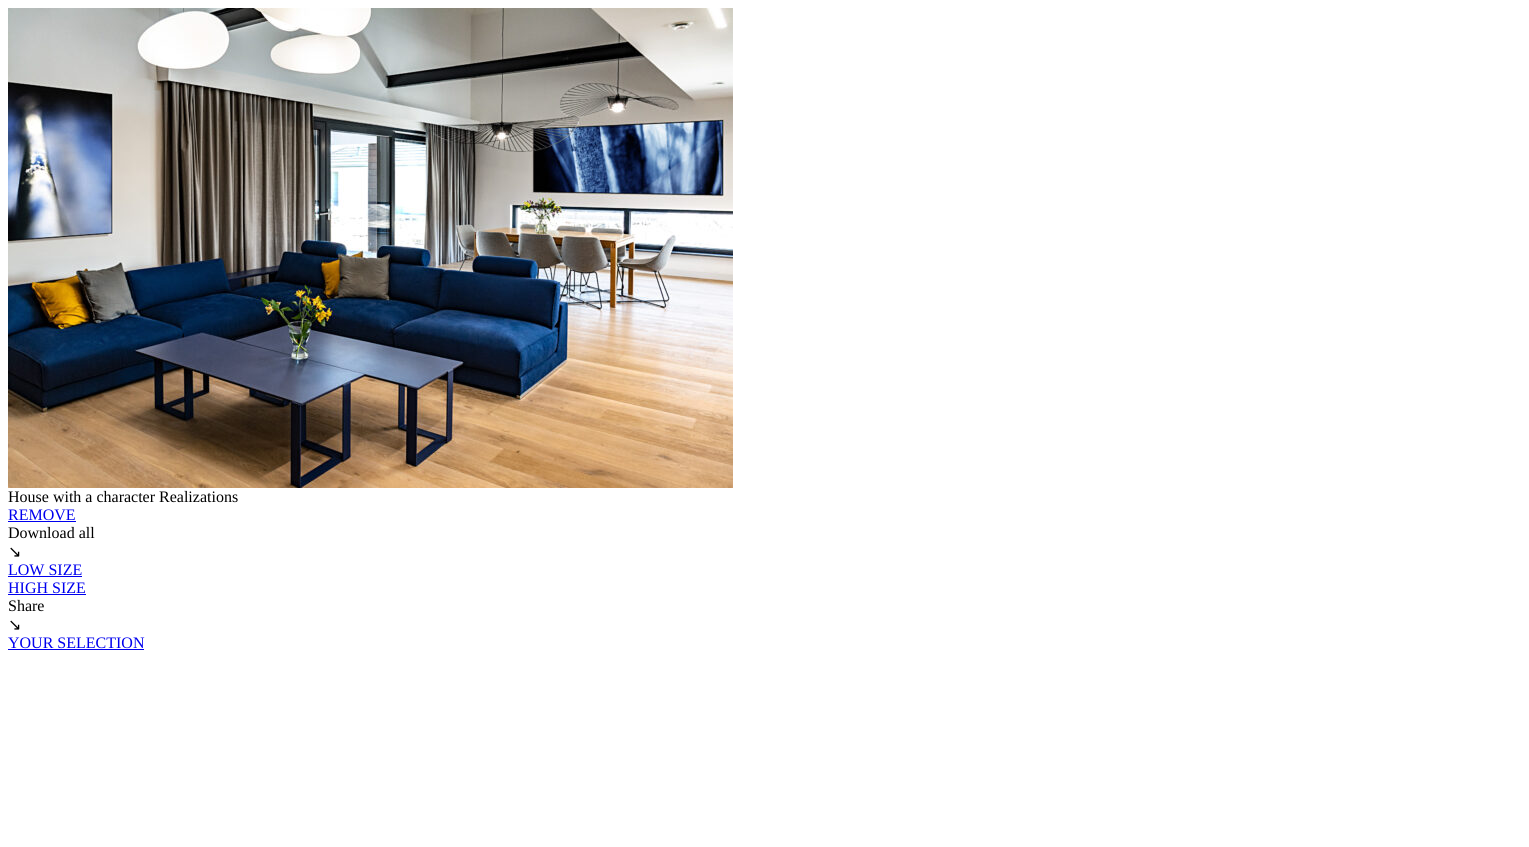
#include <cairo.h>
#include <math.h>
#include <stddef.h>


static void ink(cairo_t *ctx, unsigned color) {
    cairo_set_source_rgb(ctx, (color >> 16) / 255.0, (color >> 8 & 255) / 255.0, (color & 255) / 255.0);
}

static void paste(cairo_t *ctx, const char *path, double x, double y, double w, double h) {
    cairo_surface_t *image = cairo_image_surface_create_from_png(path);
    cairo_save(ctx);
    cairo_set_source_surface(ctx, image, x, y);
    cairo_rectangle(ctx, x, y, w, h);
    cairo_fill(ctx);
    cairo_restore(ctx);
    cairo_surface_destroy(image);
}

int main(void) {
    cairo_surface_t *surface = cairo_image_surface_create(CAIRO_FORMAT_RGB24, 1529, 847);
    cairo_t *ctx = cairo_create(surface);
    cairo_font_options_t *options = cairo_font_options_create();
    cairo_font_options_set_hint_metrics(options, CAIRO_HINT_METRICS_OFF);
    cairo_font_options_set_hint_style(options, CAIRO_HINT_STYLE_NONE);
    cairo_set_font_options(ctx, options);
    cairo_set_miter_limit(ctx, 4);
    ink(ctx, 0xFFFFFF);
    cairo_paint(ctx);
    paste(ctx, "media/1.png", 8, 8, 725, 480);
    cairo_select_font_face(ctx, "Liberation Serif", CAIRO_FONT_SLANT_NORMAL, CAIRO_FONT_WEIGHT_NORMAL);
    cairo_set_font_size(ctx, 16);
    ink(ctx, 0x000000);
    cairo_move_to(ctx, 8, 502);
    cairo_show_text(ctx, "House with a character Realizations");
    ink(ctx, 0x0000EE);
    cairo_move_to(ctx, 8, 520);
    cairo_show_text(ctx, "REMOVE");
    cairo_rectangle(ctx, 8, 521, 68, 1);
    cairo_fill(ctx);
    ink(ctx, 0x000000);
    cairo_move_to(ctx, 8, 538);
    cairo_show_text(ctx, "Download all");
    cairo_select_font_face(ctx, "DejaVu Sans", CAIRO_FONT_SLANT_NORMAL, CAIRO_FONT_WEIGHT_NORMAL);
    cairo_move_to(ctx, 8, 557);
    cairo_show_text(ctx, "↘");
    cairo_select_font_face(ctx, "Liberation Serif", CAIRO_FONT_SLANT_NORMAL, CAIRO_FONT_WEIGHT_NORMAL);
    ink(ctx, 0x0000EE);
    cairo_move_to(ctx, 8, 575);
    cairo_show_text(ctx, "LOW SIZE");
    cairo_rectangle(ctx, 8, 576, 74, 1);
    cairo_fill(ctx);
    cairo_move_to(ctx, 8, 593);
    cairo_show_text(ctx, "HIGH SIZE");
    cairo_rectangle(ctx, 8, 594, 78, 1);
    cairo_fill(ctx);
    ink(ctx, 0x000000);
    cairo_move_to(ctx, 8, 611);
    cairo_show_text(ctx, "Share");
    cairo_select_font_face(ctx, "DejaVu Sans", CAIRO_FONT_SLANT_NORMAL, CAIRO_FONT_WEIGHT_NORMAL);
    cairo_move_to(ctx, 8, 630);
    cairo_show_text(ctx, "↘");
    cairo_select_font_face(ctx, "Liberation Serif", CAIRO_FONT_SLANT_NORMAL, CAIRO_FONT_WEIGHT_NORMAL);
    ink(ctx, 0x0000EE);
    cairo_move_to(ctx, 8, 648);
    cairo_show_text(ctx, "YOUR SELECTION");
    cairo_rectangle(ctx, 8, 649, 136, 1);
    cairo_fill(ctx);
    cairo_surface_write_to_png(surface, "image.png");
    cairo_font_options_destroy(options);
    cairo_destroy(ctx);
    cairo_surface_destroy(surface);
    return 0;
}
